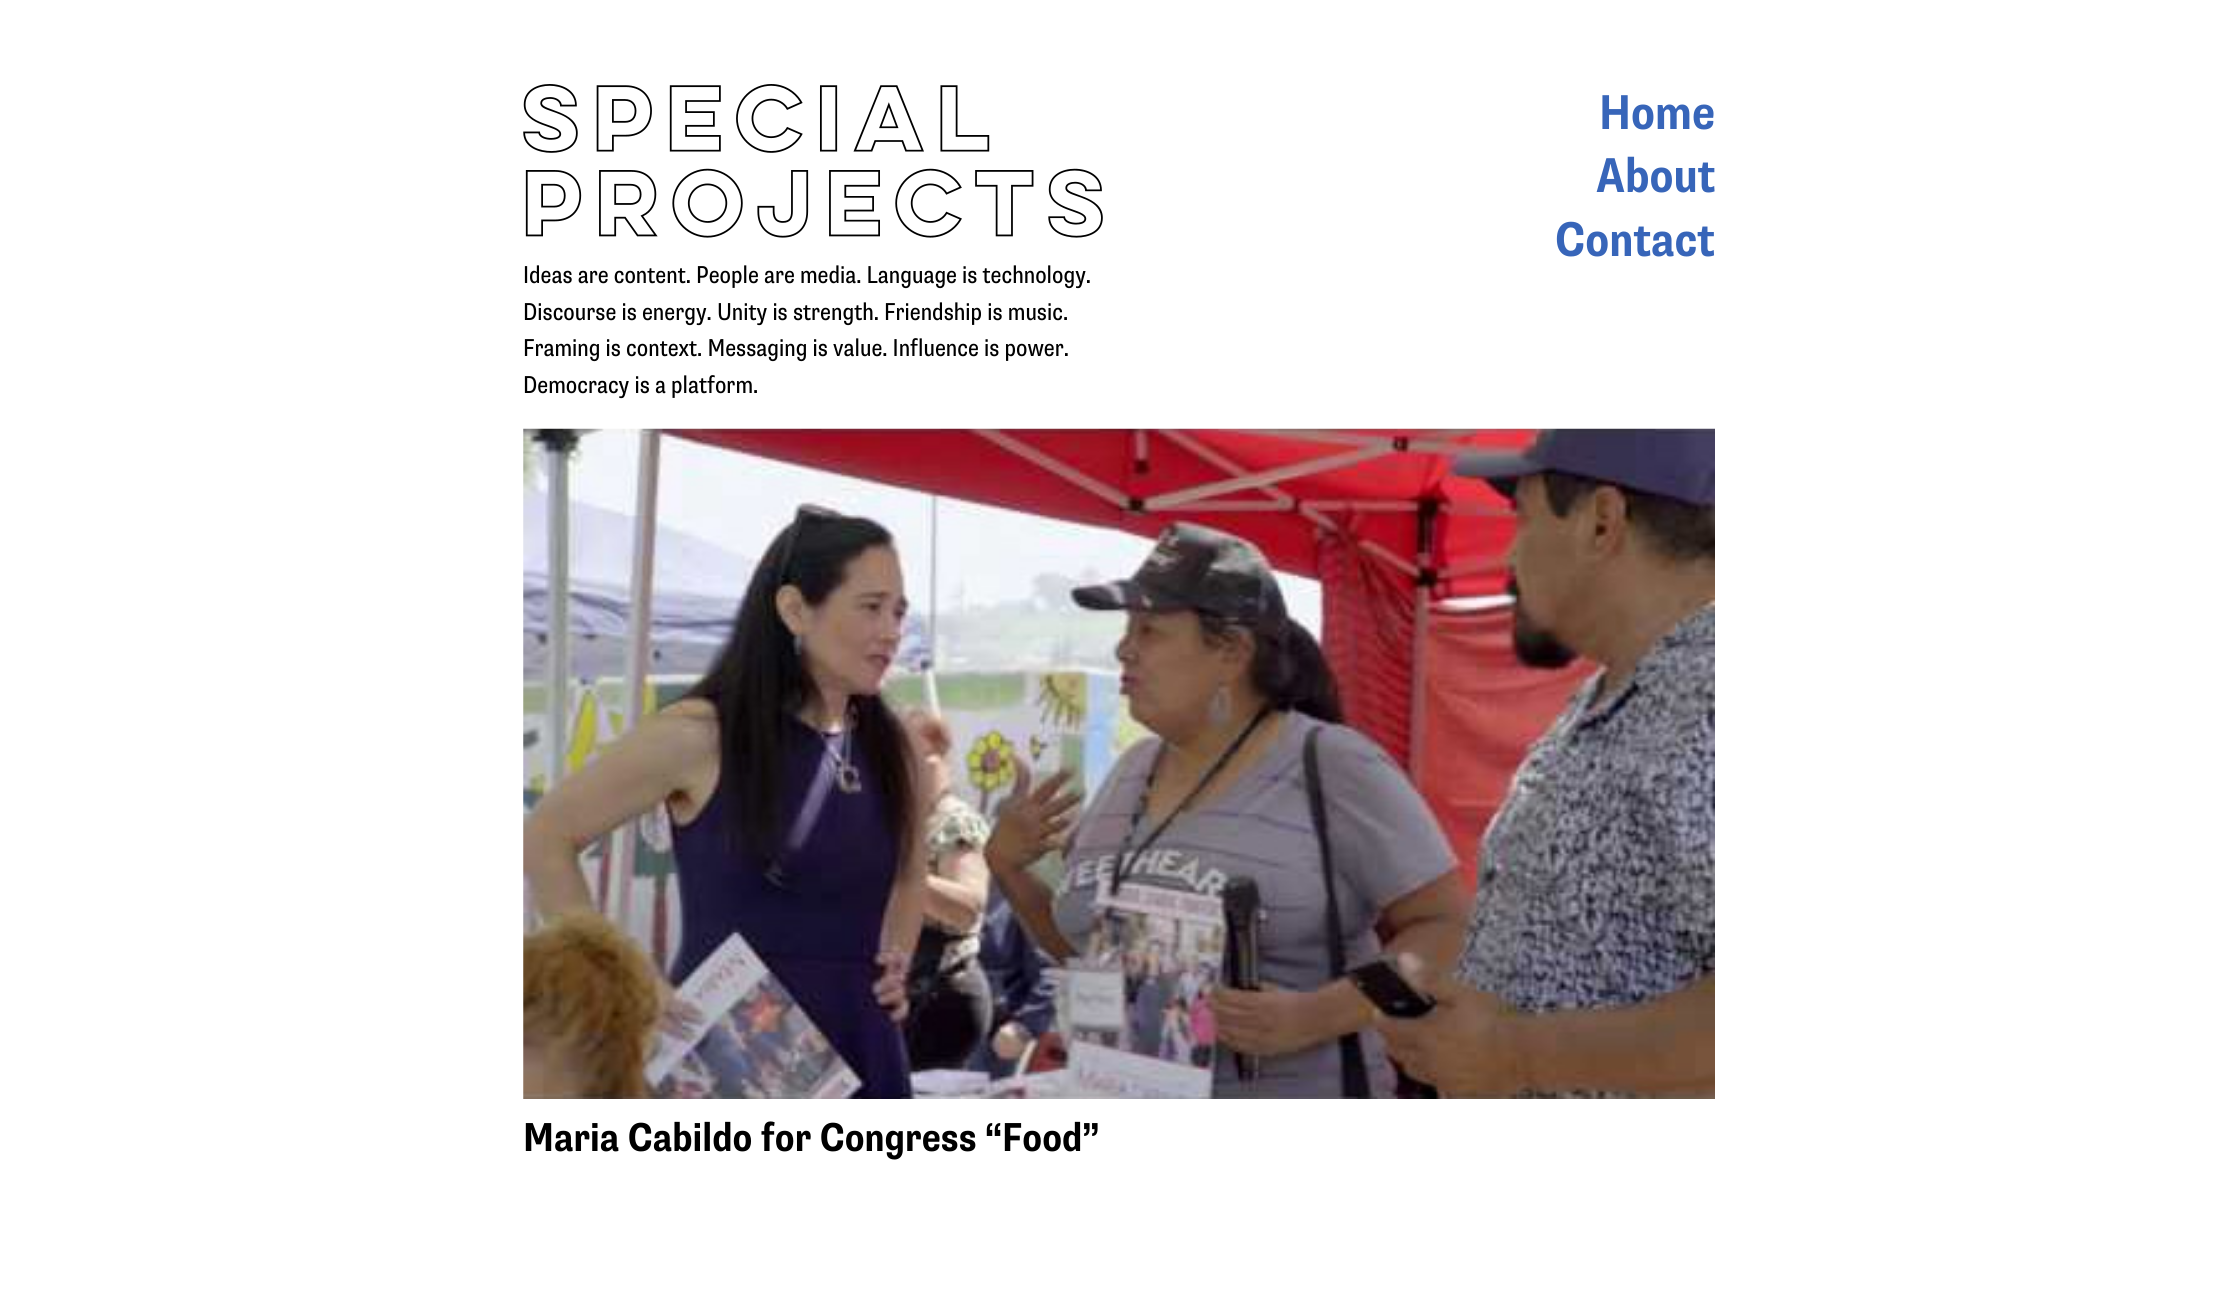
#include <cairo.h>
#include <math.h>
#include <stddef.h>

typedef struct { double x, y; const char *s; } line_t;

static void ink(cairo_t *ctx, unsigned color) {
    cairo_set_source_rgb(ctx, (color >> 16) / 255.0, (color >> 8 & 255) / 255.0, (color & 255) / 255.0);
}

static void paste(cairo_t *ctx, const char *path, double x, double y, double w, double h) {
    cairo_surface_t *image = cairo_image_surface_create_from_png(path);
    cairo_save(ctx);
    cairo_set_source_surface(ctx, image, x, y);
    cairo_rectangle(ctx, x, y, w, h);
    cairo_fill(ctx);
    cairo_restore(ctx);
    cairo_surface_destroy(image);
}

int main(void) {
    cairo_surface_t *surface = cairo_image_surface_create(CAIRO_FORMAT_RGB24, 2237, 1308);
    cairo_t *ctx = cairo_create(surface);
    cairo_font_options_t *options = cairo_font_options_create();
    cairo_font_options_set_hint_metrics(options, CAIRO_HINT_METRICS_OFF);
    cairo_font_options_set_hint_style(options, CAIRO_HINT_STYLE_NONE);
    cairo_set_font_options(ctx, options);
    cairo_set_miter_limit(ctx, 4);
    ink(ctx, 0xFFFFFF);
    cairo_paint(ctx);
    cairo_select_font_face(ctx, "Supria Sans", CAIRO_FONT_SLANT_NORMAL, CAIRO_FONT_WEIGHT_BOLD);
    cairo_set_font_size(ctx, 49);
    ink(ctx, 0x3765B9);
    {
        static const line_t items[] = {
            {1599, 129, "Home"},
            {1596, 192, "About"},
            {1555, 256, "Contact"},
        };
        for (size_t i = 0; i < sizeof items / sizeof *items; i++) {
            cairo_move_to(ctx, items[i].x, items[i].y);
            cairo_show_text(ctx, items[i].s);
        }
    }
    paste(ctx, "media/1.png", 523, 84, 580, 154);
    cairo_select_font_face(ctx, "Supria Sans", CAIRO_FONT_SLANT_NORMAL, CAIRO_FONT_WEIGHT_NORMAL);
    cairo_set_font_size(ctx, 24.5);
    ink(ctx, 0x000000);
    {
        static const line_t items[] = {
            {523, 283, "Ideas are content. People are media. Language is technology."},
            {523, 320, "Discourse is energy. Unity is strength. Friendship is music."},
            {523, 356, "Framing is context. Messaging is value. Influence is power."},
            {523, 393, "Democracy is a platform."},
        };
        for (size_t i = 0; i < sizeof items / sizeof *items; i++) {
            cairo_move_to(ctx, items[i].x, items[i].y);
            cairo_show_text(ctx, items[i].s);
        }
    }
    paste(ctx, "media/2.png", 523, 428, 1192, 671);
    cairo_select_font_face(ctx, "Supria Sans", CAIRO_FONT_SLANT_NORMAL, CAIRO_FONT_WEIGHT_BOLD);
    cairo_set_font_size(ctx, 40.5);
    cairo_move_to(ctx, 523, 1151);
    cairo_show_text(ctx, "Maria Cabildo for Congress “Food”");
    cairo_surface_write_to_png(surface, "image.png");
    cairo_font_options_destroy(options);
    cairo_destroy(ctx);
    cairo_surface_destroy(surface);
    return 0;
}
